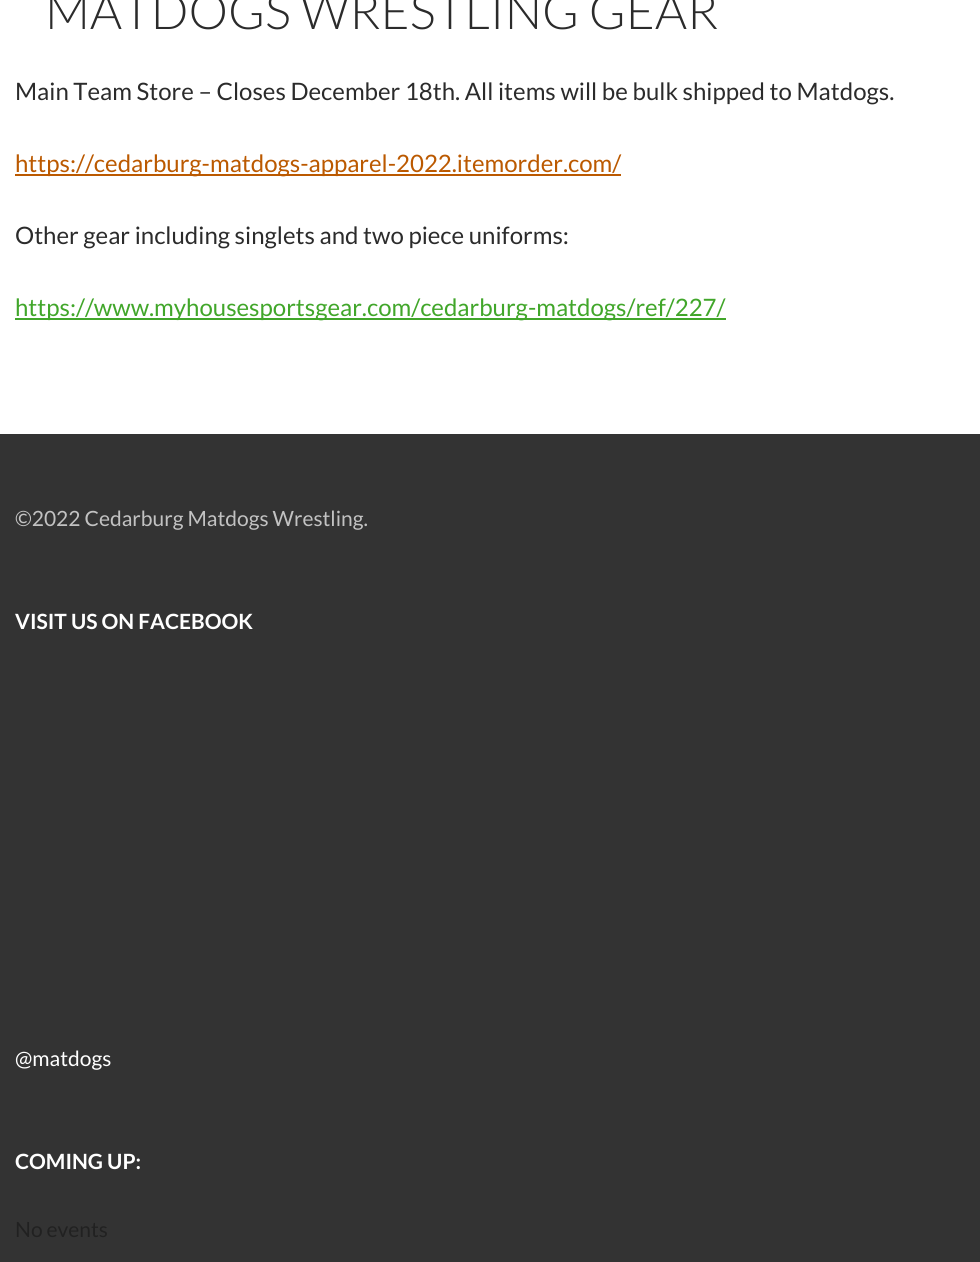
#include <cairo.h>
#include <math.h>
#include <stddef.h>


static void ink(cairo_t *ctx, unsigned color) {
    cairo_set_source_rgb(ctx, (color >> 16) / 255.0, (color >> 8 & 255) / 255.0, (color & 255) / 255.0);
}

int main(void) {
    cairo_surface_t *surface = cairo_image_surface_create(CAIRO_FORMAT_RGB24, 980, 1262);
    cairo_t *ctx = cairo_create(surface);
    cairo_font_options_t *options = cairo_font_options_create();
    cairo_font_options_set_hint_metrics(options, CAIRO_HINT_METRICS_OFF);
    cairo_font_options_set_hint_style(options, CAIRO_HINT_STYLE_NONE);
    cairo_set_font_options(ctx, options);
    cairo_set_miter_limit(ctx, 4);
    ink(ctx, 0xFFFFFF);
    cairo_paint(ctx);
    cairo_select_font_face(ctx, "Lato Light", CAIRO_FONT_SLANT_NORMAL, CAIRO_FONT_WEIGHT_NORMAL);
    cairo_set_font_size(ctx, 49.5);
    ink(ctx, 0x2B2B2B);
    cairo_move_to(ctx, 45, 29);
    cairo_show_text(ctx, "MATDOGS WRESTLING GEAR");
    cairo_select_font_face(ctx, "Lato", CAIRO_FONT_SLANT_NORMAL, CAIRO_FONT_WEIGHT_NORMAL);
    cairo_set_font_size(ctx, 24);
    cairo_move_to(ctx, 15, 100);
    cairo_show_text(ctx, "Main Team Store – Closes December 18th. All items will be bulk shipped to Matdogs.");
    ink(ctx, 0xBB5900);
    cairo_rectangle(ctx, 15, 174, 606, 2);
    cairo_fill(ctx);
    cairo_move_to(ctx, 15, 172);
    cairo_show_text(ctx, "https://cedarburg-matdogs-apparel-2022.itemorder.com/");
    ink(ctx, 0x2B2B2B);
    cairo_move_to(ctx, 15, 244);
    cairo_show_text(ctx, "Other gear including singlets and two piece uniforms:");
    ink(ctx, 0x41A62A);
    cairo_rectangle(ctx, 15, 318, 711, 2);
    cairo_fill(ctx);
    cairo_move_to(ctx, 15, 316);
    cairo_show_text(ctx, "https://www.myhousesportsgear.com/cedarburg-matdogs/ref/227/");
    ink(ctx, 0x333333);
    cairo_rectangle(ctx, 0, 434, 980, 828);
    cairo_fill(ctx);
    cairo_set_font_size(ctx, 21);
    ink(ctx, 0xC2C2C2);
    cairo_move_to(ctx, 15, 526);
    cairo_show_text(ctx, "©2022 Cedarburg Matdogs Wrestling.");
    cairo_select_font_face(ctx, "Lato", CAIRO_FONT_SLANT_NORMAL, CAIRO_FONT_WEIGHT_BOLD);
    ink(ctx, 0xFFFFFF);
    cairo_move_to(ctx, 15, 629);
    cairo_show_text(ctx, "VISIT US ON FACEBOOK");
    cairo_select_font_face(ctx, "Lato", CAIRO_FONT_SLANT_NORMAL, CAIRO_FONT_WEIGHT_NORMAL);
    cairo_move_to(ctx, 15, 1066);
    cairo_show_text(ctx, "@matdogs");
    cairo_select_font_face(ctx, "Lato", CAIRO_FONT_SLANT_NORMAL, CAIRO_FONT_WEIGHT_BOLD);
    cairo_move_to(ctx, 15, 1169);
    cairo_show_text(ctx, "COMING UP:");
    cairo_select_font_face(ctx, "Lato", CAIRO_FONT_SLANT_NORMAL, CAIRO_FONT_WEIGHT_NORMAL);
    ink(ctx, 0x212121);
    cairo_move_to(ctx, 15, 1237);
    cairo_show_text(ctx, "No events");
    cairo_surface_write_to_png(surface, "image.png");
    cairo_font_options_destroy(options);
    cairo_destroy(ctx);
    cairo_surface_destroy(surface);
    return 0;
}
